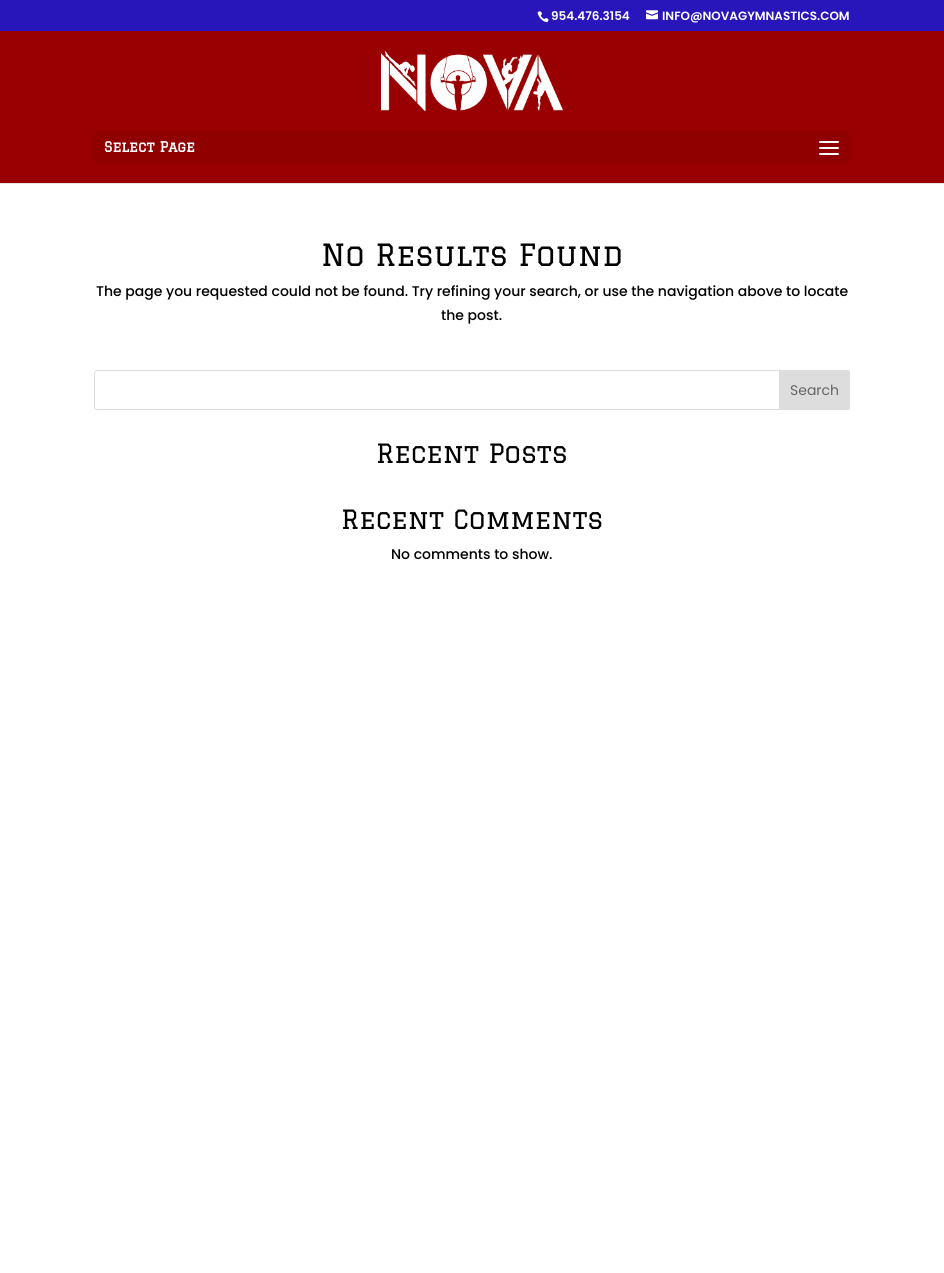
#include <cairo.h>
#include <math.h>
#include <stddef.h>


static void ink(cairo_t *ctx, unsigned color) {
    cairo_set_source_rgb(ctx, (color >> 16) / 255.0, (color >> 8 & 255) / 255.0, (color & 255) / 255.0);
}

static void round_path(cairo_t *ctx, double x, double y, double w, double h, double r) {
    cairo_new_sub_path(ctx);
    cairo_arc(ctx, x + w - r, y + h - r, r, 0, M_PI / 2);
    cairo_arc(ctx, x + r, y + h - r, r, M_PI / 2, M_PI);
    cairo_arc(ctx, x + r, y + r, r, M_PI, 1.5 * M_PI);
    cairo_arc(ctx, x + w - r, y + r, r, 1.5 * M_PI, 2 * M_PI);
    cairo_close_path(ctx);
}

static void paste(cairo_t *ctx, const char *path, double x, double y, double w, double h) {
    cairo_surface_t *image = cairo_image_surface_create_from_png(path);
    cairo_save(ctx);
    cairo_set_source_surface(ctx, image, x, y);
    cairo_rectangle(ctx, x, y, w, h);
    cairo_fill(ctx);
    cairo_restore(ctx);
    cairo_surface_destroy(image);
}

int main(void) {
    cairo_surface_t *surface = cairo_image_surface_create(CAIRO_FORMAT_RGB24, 944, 1273);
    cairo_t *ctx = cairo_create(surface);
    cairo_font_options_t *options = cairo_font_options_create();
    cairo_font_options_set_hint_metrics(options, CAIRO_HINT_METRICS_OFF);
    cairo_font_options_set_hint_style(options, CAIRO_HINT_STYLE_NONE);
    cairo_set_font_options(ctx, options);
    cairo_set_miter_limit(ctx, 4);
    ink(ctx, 0xFFFFFF);
    cairo_paint(ctx);
    ink(ctx, 0x2916BB);
    cairo_rectangle(ctx, 0, 0, 944, 31);
    cairo_fill(ctx);
    paste(ctx, "media/1.png", 537, 11, 12, 12);
    cairo_select_font_face(ctx, "Poppins SemiBold", CAIRO_FONT_SLANT_NORMAL, CAIRO_FONT_WEIGHT_NORMAL);
    cairo_set_font_size(ctx, 12);
    ink(ctx, 0xFFFFFF);
    cairo_move_to(ctx, 551, 20);
    cairo_show_text(ctx, "954.476.3154");
    paste(ctx, "media/2.png", 646, 10, 12, 10);
    cairo_move_to(ctx, 662, 20);
    cairo_show_text(ctx, "INFO@NOVAGYMNASTICS.COM");
    ink(ctx, 0xE6E6E6);
    cairo_rectangle(ctx, 0, 183, 944, 1);
    cairo_fill(ctx);
    ink(ctx, 0x990001);
    cairo_rectangle(ctx, 0, 31, 944, 152);
    cairo_fill(ctx);
    paste(ctx, "media/3.png", 381, 51, 182, 60);
    ink(ctx, 0x910001);
    round_path(ctx, 94, 131, 756, 32, 5);
    cairo_fill(ctx);
    cairo_select_font_face(ctx, "Graduate", CAIRO_FONT_SLANT_NORMAL, CAIRO_FONT_WEIGHT_BOLD);
    cairo_set_font_size(ctx, 14);
    ink(ctx, 0xFFFFFF);
    cairo_move_to(ctx, 104, 152);
    cairo_show_text(ctx, "Select Page");
    paste(ctx, "media/4.png", 819, 141, 20, 14);
    cairo_select_font_face(ctx, "Graduate", CAIRO_FONT_SLANT_NORMAL, CAIRO_FONT_WEIGHT_NORMAL);
    cairo_set_font_size(ctx, 30);
    ink(ctx, 0x000000);
    cairo_move_to(ctx, 321, 266);
    cairo_show_text(ctx, "No Results Found");
    cairo_select_font_face(ctx, "Poppins Medium", CAIRO_FONT_SLANT_NORMAL, CAIRO_FONT_WEIGHT_NORMAL);
    cairo_set_font_size(ctx, 14);
    cairo_move_to(ctx, 96, 296);
    cairo_show_text(ctx, "The page you requested could not be found. Try refining your search, or use the navigation above to locate");
    cairo_move_to(ctx, 441, 320);
    cairo_show_text(ctx, "the post.");
    round_path(ctx, 94.5, 370.5, 755, 39, 2.5);
    ink(ctx, 0xDDDDDD);
    cairo_set_line_width(ctx, 1);
    cairo_stroke(ctx);
    cairo_new_path(ctx);
    cairo_move_to(ctx, 779.5, 370.5);
    cairo_line_to(ctx, 847, 370.5);
    cairo_curve_to(ctx, 848.5, 370.5, 849.5, 371.5, 849.5, 373);
    cairo_line_to(ctx, 849.5, 407);
    cairo_curve_to(ctx, 849.5, 408.5, 848.5, 409.5, 847, 409.5);
    cairo_line_to(ctx, 779.5, 409.5);
    cairo_close_path(ctx);
    cairo_fill_preserve(ctx);
    cairo_stroke(ctx);
    cairo_select_font_face(ctx, "Poppins", CAIRO_FONT_SLANT_NORMAL, CAIRO_FONT_WEIGHT_NORMAL);
    ink(ctx, 0x666666);
    cairo_move_to(ctx, 790, 395);
    cairo_show_text(ctx, "Search");
    cairo_select_font_face(ctx, "Graduate", CAIRO_FONT_SLANT_NORMAL, CAIRO_FONT_WEIGHT_NORMAL);
    cairo_set_font_size(ctx, 26);
    ink(ctx, 0x000000);
    cairo_move_to(ctx, 376, 463);
    cairo_show_text(ctx, "Recent Posts");
    cairo_move_to(ctx, 341, 529);
    cairo_show_text(ctx, "Recent Comments");
    cairo_select_font_face(ctx, "Poppins Medium", CAIRO_FONT_SLANT_NORMAL, CAIRO_FONT_WEIGHT_NORMAL);
    cairo_set_font_size(ctx, 14);
    cairo_move_to(ctx, 391, 559);
    cairo_show_text(ctx, "No comments to show.");
    cairo_surface_write_to_png(surface, "image.png");
    cairo_font_options_destroy(options);
    cairo_destroy(ctx);
    cairo_surface_destroy(surface);
    return 0;
}
